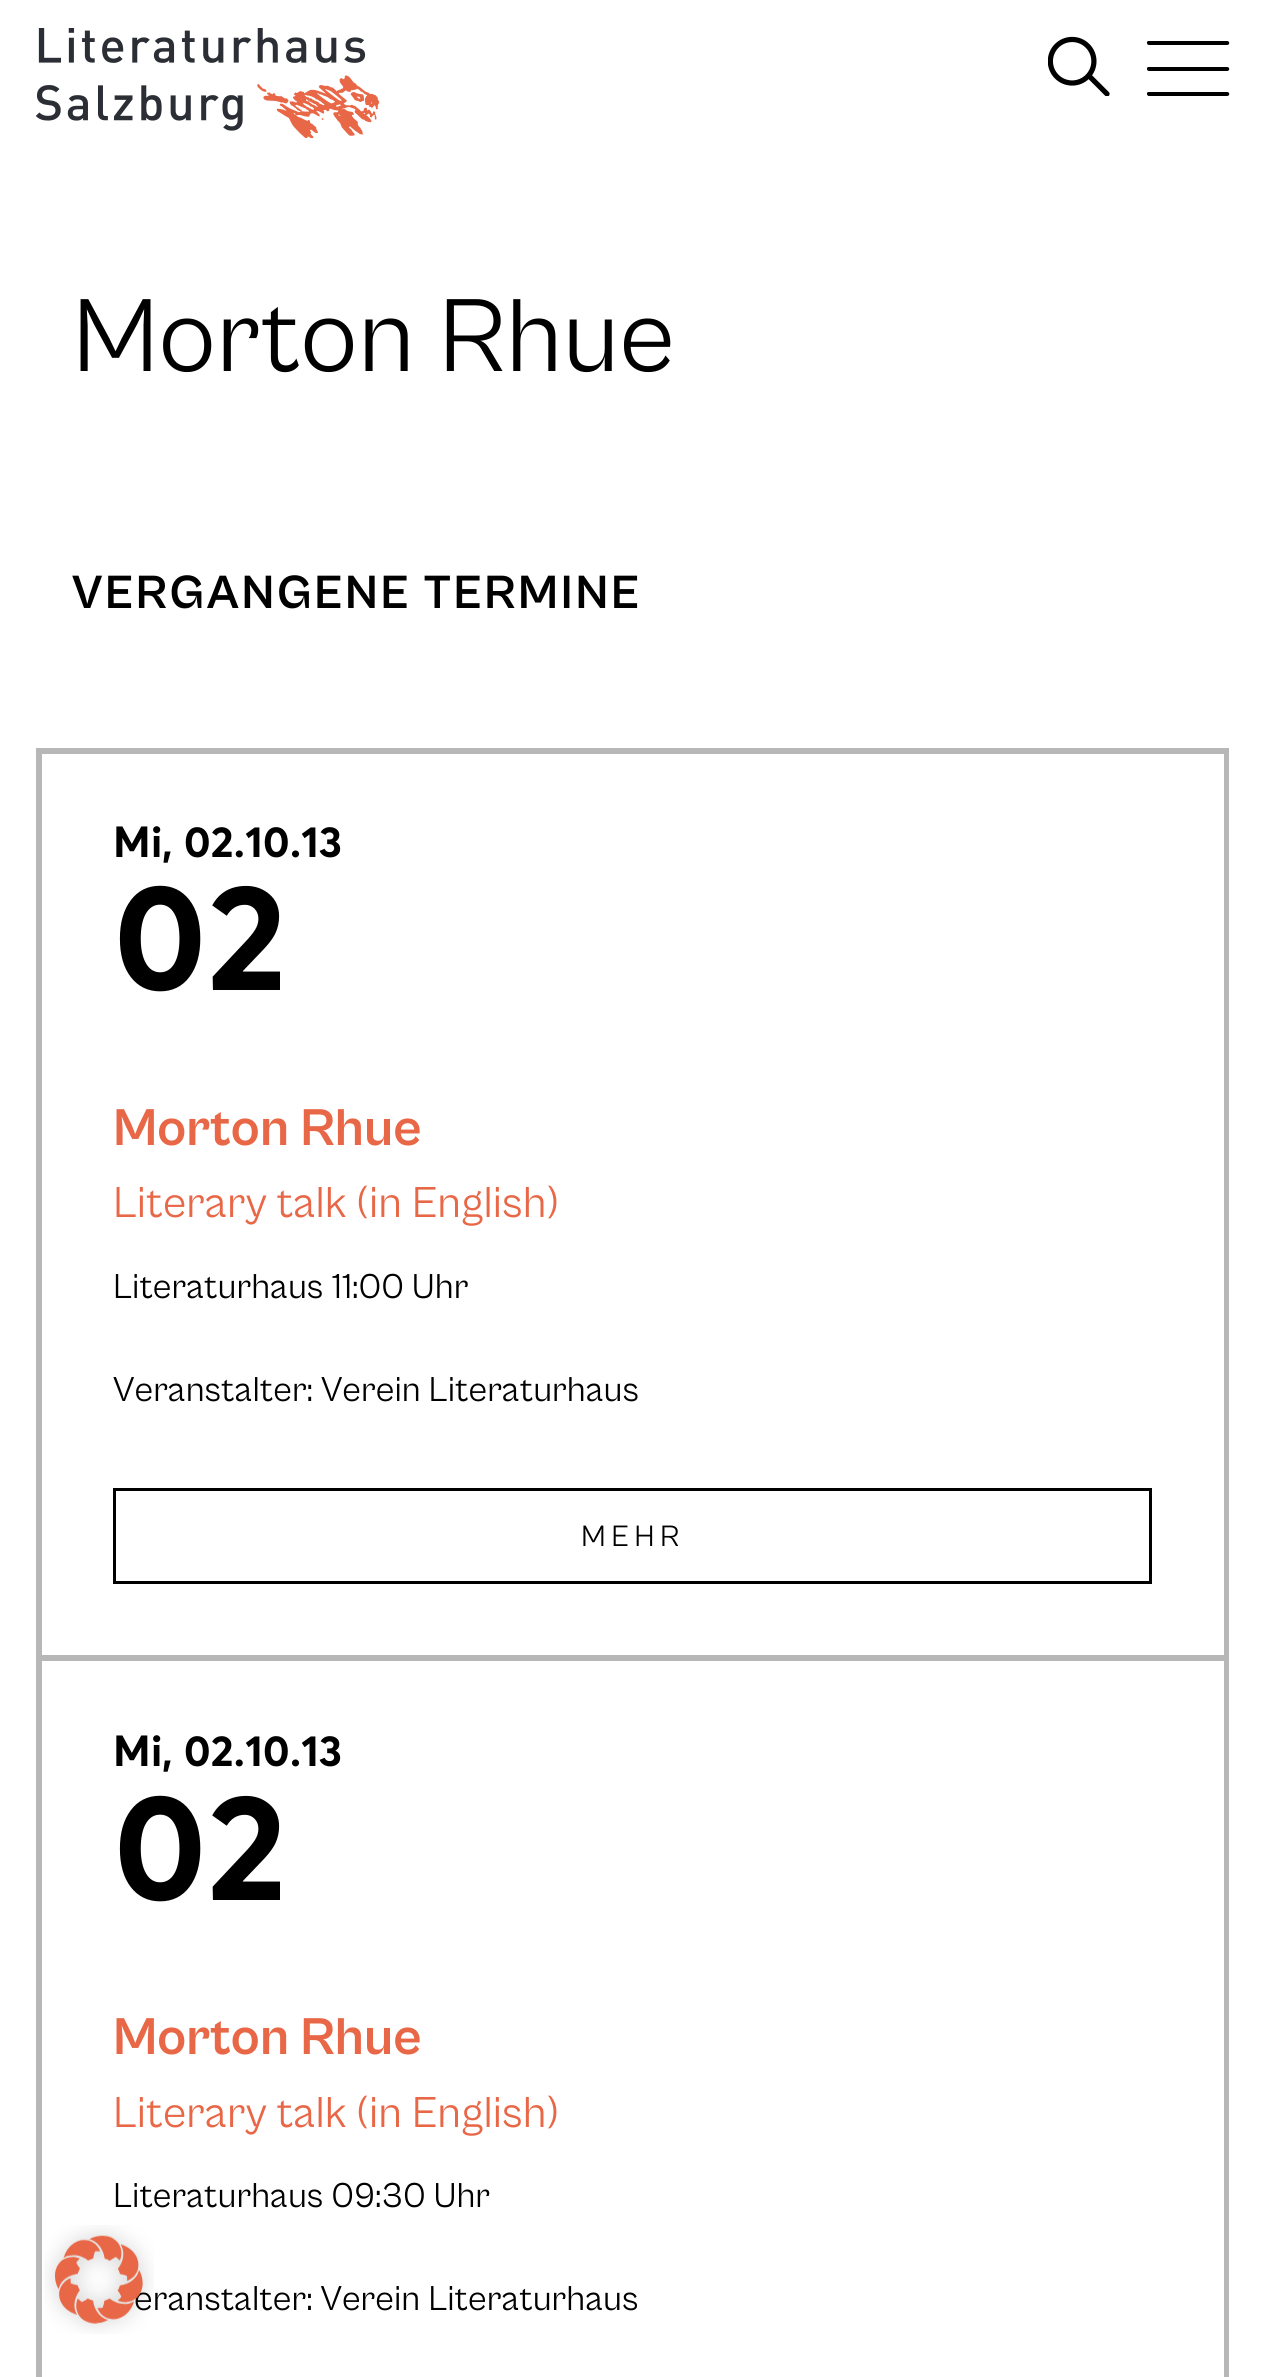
import math
import cairocffi as cairo

surface = cairo.ImageSurface(cairo.FORMAT_RGB24, 1264, 2377)
cr = cairo.Context(surface)
options = cairo.FontOptions()
options.set_hint_metrics(cairo.HINT_METRICS_OFF)
options.set_hint_style(cairo.HINT_STYLE_NONE)
cr.set_font_options(options)
cr.set_miter_limit(4)


def use_color(code):
    cr.set_source_rgb(*(v / 255 for v in bytes.fromhex(code[-6:])))


def spaced_text(x, y, s, letter, word):
    cr.move_to(x, y)
    for ch in s:
        cr.show_text(ch)
        cr.rel_move_to(letter + word * (ch == ' '), 0)


def picture(path, x, y, w, h):
    cr.save()
    cr.set_source_surface(cairo.ImageSurface.create_from_png(path), x, y)
    cr.rectangle(x, y, w, h)
    cr.fill()
    cr.restore()


use_color("#ffffff")
cr.paint()
picture("img1.png", 36, 28, 344, 110)
picture("img2.png", 1048, 36, 62, 60)
use_color("#000000")
cr.new_path()
cr.move_to(1227, 45)
cr.line_to(1149, 45)
cr.curve_to(1147, 45, 1146, 42, 1148, 41)
cr.line_to(1227, 41)
cr.curve_to(1230, 41, 1230, 45, 1227, 45)
cr.close_path()
cr.fill()
cr.new_path()
cr.move_to(1227, 71)
cr.line_to(1149, 71)
cr.curve_to(1147, 71, 1146, 68, 1148, 67)
cr.line_to(1227, 67)
cr.curve_to(1230, 67, 1230, 71, 1227, 71)
cr.close_path()
cr.fill()
cr.new_path()
cr.move_to(1227, 96)
cr.line_to(1149, 96)
cr.curve_to(1147, 96, 1146, 93, 1148, 92)
cr.line_to(1227, 92)
cr.curve_to(1230, 92, 1230, 96, 1227, 96)
cr.close_path()
cr.fill()
cr.select_font_face("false")
cr.set_font_size(107.25)
cr.move_to(72, 371)
cr.show_text("Morton Rhue")
cr.select_font_face("false", cairo.FONT_SLANT_NORMAL, cairo.FONT_WEIGHT_BOLD)
cr.set_font_size(48.25)
spaced_text(72, 608, "VERGANGENE TERMINE", 2.75, 0)
cr.rectangle(37.5, 749.5, 1190, 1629)
use_color("#b7b7b7")
cr.set_line_width(3)
cr.stroke()
cr.rectangle(40.5, 752.5, 1185, 904)
cr.stroke()
cr.select_font_face("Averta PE")
cr.set_font_size(43)
use_color("#000000")
cr.move_to(113, 857)
cr.show_text("Mi, 02.10.13")
cr.set_font_size(150)
cr.move_to(113, 990)
cr.show_text("02")
cr.select_font_face("false", cairo.FONT_SLANT_NORMAL, cairo.FONT_WEIGHT_BOLD)
cr.set_font_size(53.5)
use_color("#e86747")
cr.move_to(113, 1145)
cr.show_text("Morton Rhue")
cr.select_font_face("false")
cr.set_font_size(44.75)
cr.move_to(113, 1217)
cr.show_text("Literary talk (in English)")
cr.set_font_size(35.75)
use_color("#000000")
cr.move_to(113, 1298)
cr.show_text("Literaturhaus 11:00 Uhr")
cr.move_to(113, 1401)
cr.show_text("Veranstalter: Verein Literaturhaus")
cr.rectangle(114.5, 1489.5, 1036, 93)
cr.stroke()
cr.set_font_size(30.5)
spaced_text(581, 1546, "MEHR", 5.5, 0)
cr.rectangle(40.5, 1659.5, 1185, 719)
use_color("#b7b7b7")
cr.stroke()
cr.select_font_face("Averta PE")
cr.set_font_size(43)
use_color("#000000")
cr.move_to(113, 1766)
cr.show_text("Mi, 02.10.13")
cr.set_font_size(150)
cr.move_to(113, 1900)
cr.show_text("02")
cr.select_font_face("false", cairo.FONT_SLANT_NORMAL, cairo.FONT_WEIGHT_BOLD)
cr.set_font_size(53.5)
use_color("#e86747")
cr.move_to(113, 2054)
cr.show_text("Morton Rhue")
cr.select_font_face("false")
cr.set_font_size(44.75)
cr.move_to(113, 2127)
cr.show_text("Literary talk (in English)")
cr.set_font_size(35.75)
use_color("#000000")
cr.move_to(113, 2207)
cr.show_text("Literaturhaus 09:30 Uhr")
cr.move_to(134, 2310)
cr.show_text("eranstalter: Verein Literaturhaus")
picture("img3.png", 44, 2225, 110, 109)
surface.write_to_png("result.png")
